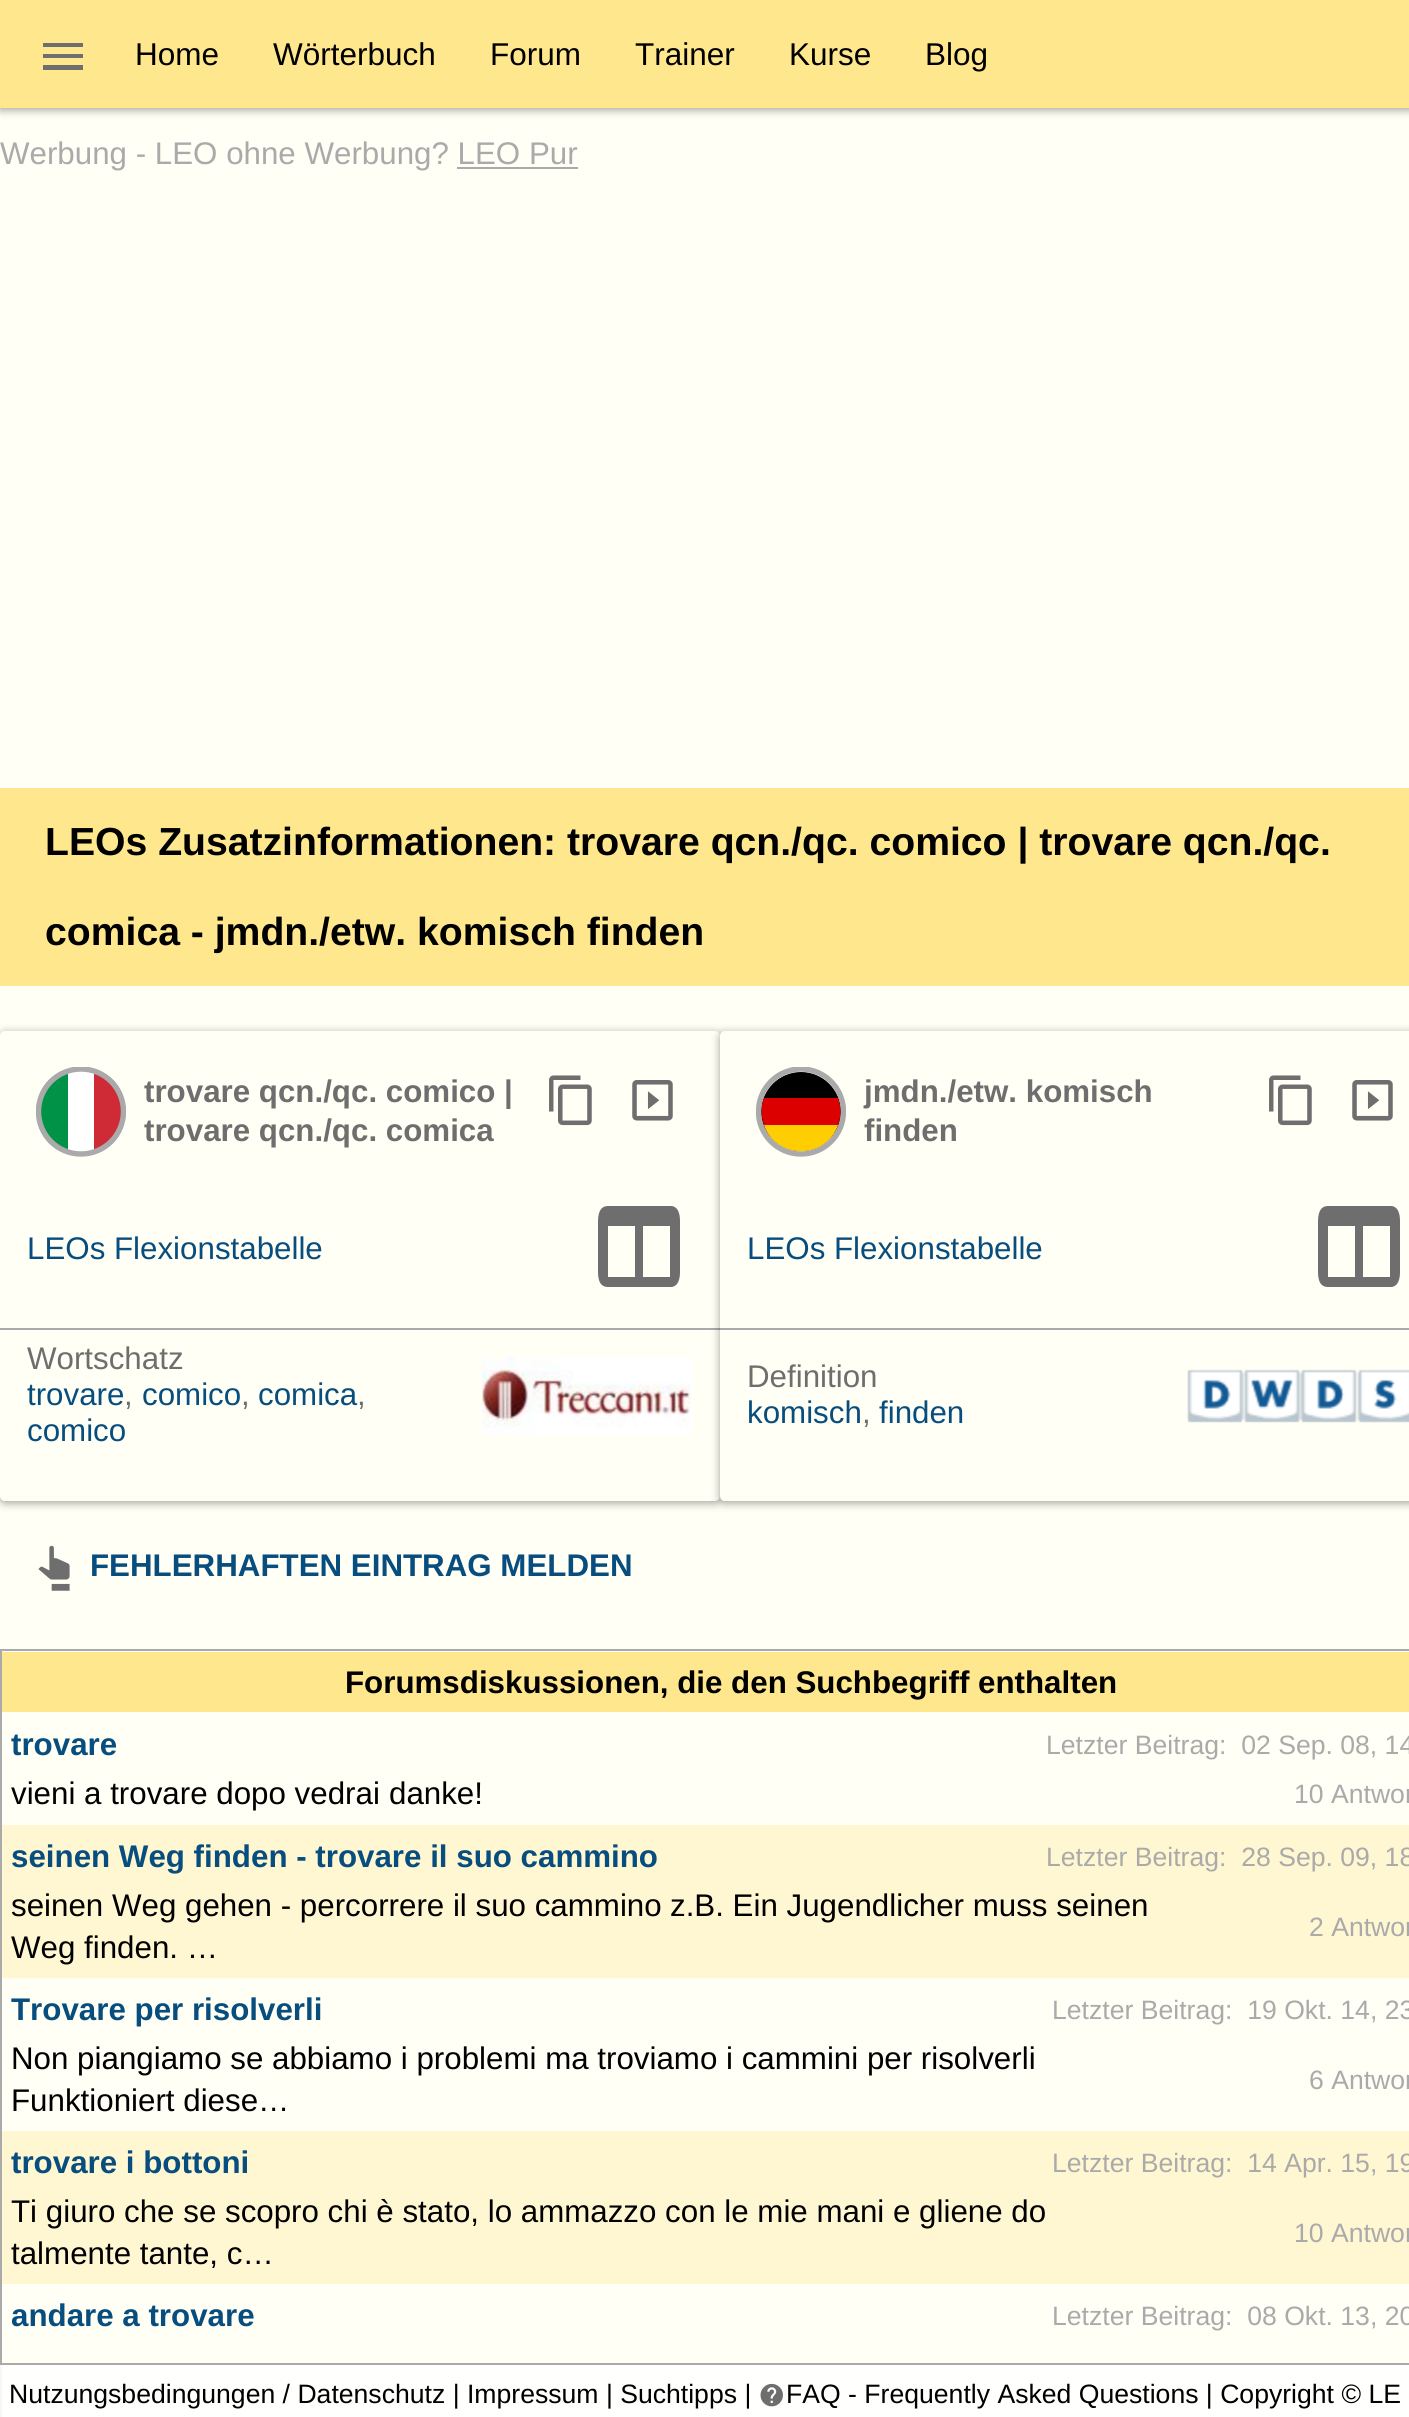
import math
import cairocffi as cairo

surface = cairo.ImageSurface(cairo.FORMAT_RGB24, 1409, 2417)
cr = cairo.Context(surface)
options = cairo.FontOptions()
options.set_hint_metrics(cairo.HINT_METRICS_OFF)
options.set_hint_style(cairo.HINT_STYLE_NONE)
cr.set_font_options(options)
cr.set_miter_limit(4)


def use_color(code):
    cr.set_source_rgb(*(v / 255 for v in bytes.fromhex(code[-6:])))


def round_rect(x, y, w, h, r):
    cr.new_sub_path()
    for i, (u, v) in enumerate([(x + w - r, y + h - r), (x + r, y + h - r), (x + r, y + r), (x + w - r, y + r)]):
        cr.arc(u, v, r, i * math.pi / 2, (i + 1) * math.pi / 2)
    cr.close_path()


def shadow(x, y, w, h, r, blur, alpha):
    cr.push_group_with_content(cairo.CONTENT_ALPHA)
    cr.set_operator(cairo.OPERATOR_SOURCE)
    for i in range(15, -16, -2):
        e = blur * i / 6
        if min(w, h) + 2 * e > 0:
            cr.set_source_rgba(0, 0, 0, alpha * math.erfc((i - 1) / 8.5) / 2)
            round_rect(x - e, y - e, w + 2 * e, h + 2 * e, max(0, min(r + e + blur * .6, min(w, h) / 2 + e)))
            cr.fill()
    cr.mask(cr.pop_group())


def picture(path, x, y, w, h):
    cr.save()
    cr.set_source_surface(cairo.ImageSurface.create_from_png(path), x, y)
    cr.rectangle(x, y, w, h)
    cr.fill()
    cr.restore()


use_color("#fffff5")
cr.paint()
use_color("#000000")
shadow(0, 2, 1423, 108, 0, 4.5, 0.37)
use_color("#ffe78d")
cr.rectangle(0, 0, 1409, 108)
cr.fill()
use_color("#6e6e6e")
cr.new_path()
cr.move_to(43, 43)
cr.line_to(83, 43)
cr.line_to(83, 47)
cr.line_to(43, 47)
cr.close_path()
cr.move_to(43, 54)
cr.line_to(83, 54)
cr.line_to(83, 58)
cr.line_to(43, 58)
cr.close_path()
cr.move_to(43, 65)
cr.line_to(83, 65)
cr.line_to(83, 70)
cr.line_to(43, 70)
cr.close_path()
cr.fill()
cr.select_font_face("Liberation Sans")
cr.set_font_size(31.5)
use_color("#000000")
cr.move_to(135, 65)
cr.show_text("Home")
cr.move_to(273, 65)
cr.show_text("Wörterbuch")
cr.move_to(490, 65)
cr.show_text("Forum")
cr.move_to(635, 65)
cr.show_text("Trainer")
cr.move_to(789, 65)
cr.show_text("Kurse")
cr.move_to(925, 65)
cr.show_text("Blog")
cr.set_font_size(31.3)
use_color("#aaaaaa")
cr.move_to(0, 164)
cr.show_text("Werbung - LEO ohne Werbung? LEO Pur")
cr.rectangle(457, 167, 121, 2)
cr.fill()
use_color("#ffe78d")
cr.rectangle(0, 788, 1409, 198)
cr.fill()
cr.select_font_face("Liberation Sans", cairo.FONT_SLANT_NORMAL, cairo.FONT_WEIGHT_BOLD)
cr.set_font_size(39.15)
use_color("#000000")
cr.move_to(45, 855)
cr.show_text("LEOs Zusatzinformationen: trovare qcn./qc. comico | trovare qcn./qc.")
cr.move_to(45, 945)
cr.show_text("comica - jmdn./etw. komisch finden")
use_color("#000000")
shadow(0, 1033, 720, 470, 5, 4.5, 0.37)
use_color("#fffff5")
round_rect(0, 1031, 720, 470, 5)
cr.fill()
cr.save()
cr.rectangle(36, 1067, 90, 90)
cr.clip()
use_color("#ffffff")
cr.new_path()
cr.move_to(81, 1067)
cr.curve_to(73, 1066, 64, 1069, 57, 1073)
cr.line_to(57, 1150)
cr.curve_to(70, 1158, 89, 1159, 102, 1151)
cr.line_to(102, 1072)
cr.curve_to(96, 1068, 88, 1067, 81, 1067)
cr.close_path()
cr.fill()
cr.restore()
use_color("#009246")
cr.new_path()
cr.move_to(68, 1069)
cr.curve_to(26, 1081, 26, 1142, 68, 1154)
cr.close_path()
cr.fill()
use_color("#ce2b37")
cr.new_path()
cr.move_to(94, 1154)
cr.curve_to(136, 1142, 136, 1081, 94, 1069)
cr.close_path()
cr.fill()
cr.save()
cr.rectangle(36, 1067, 90, 90)
cr.clip()
cr.arc(81, 1111.5, 42.5, 0, 2 * math.pi)
use_color("#aaaaaa")
cr.set_line_width(5.4)
cr.stroke()
cr.restore()
cr.set_font_size(31.3)
use_color("#6e6e6e")
cr.move_to(144, 1102)
cr.show_text("trovare qcn./qc. comico |")
cr.move_to(144, 1141)
cr.show_text("trovare qcn./qc. comica")
picture("img1.png", 549, 1075, 43, 51)
picture("img2.png", 632, 1080, 41, 41)
cr.select_font_face("Liberation Sans")
use_color("#074d7e")
cr.move_to(27, 1259)
cr.show_text("LEOs Flexionstabelle")
use_color("#6e6e6e")
cr.new_path()
cr.move_to(608, 1206)
cr.line_to(672, 1206)
cr.curve_to(681, 1208, 680, 1220, 680, 1226)
cr.line_to(680, 1267)
cr.curve_to(680, 1273, 681, 1285, 672, 1287)
cr.line_to(608, 1287)
cr.curve_to(597, 1287, 598, 1274, 598, 1267)
cr.line_to(598, 1226)
cr.curve_to(598, 1220, 597, 1206, 608, 1206)
cr.close_path()
cr.move_to(608, 1226)
cr.line_to(608, 1277)
cr.line_to(635, 1277)
cr.line_to(635, 1226)
cr.close_path()
cr.move_to(643, 1226)
cr.line_to(643, 1277)
cr.line_to(670, 1277)
cr.line_to(670, 1226)
cr.close_path()
cr.fill()
use_color("#aaaaaa")
cr.rectangle(0, 1328, 720, 2)
cr.fill()
use_color("#6e6e6e")
cr.move_to(27, 1369)
cr.show_text("Wortschatz")
use_color("#074d7e")
cr.move_to(27, 1405)
cr.show_text("trovare")
use_color("#6e6e6e")
cr.move_to(124, 1405)
cr.show_text(",")
use_color("#074d7e")
cr.move_to(142, 1405)
cr.show_text("comico")
use_color("#6e6e6e")
cr.move_to(241, 1405)
cr.show_text(",")
use_color("#074d7e")
cr.move_to(258, 1405)
cr.show_text("comica")
use_color("#6e6e6e")
cr.move_to(357, 1405)
cr.show_text(",")
use_color("#074d7e")
cr.move_to(27, 1441)
cr.show_text("comico")
picture("img3.png", 482, 1357, 211, 79)
use_color("#000000")
shadow(720, 1033, 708, 470, 5, 4.5, 0.37)
use_color("#fffff5")
cr.new_path()
cr.move_to(725, 1031)
cr.line_to(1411, 1031)
cr.line_to(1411, 1501)
cr.line_to(725, 1501)
cr.curve_to(722, 1501, 720, 1499, 720, 1496)
cr.line_to(720, 1036)
cr.curve_to(720, 1033, 722, 1031, 725, 1031)
cr.close_path()
cr.fill()
use_color("#000000")
cr.new_path()
cr.move_to(801, 1072)
cr.curve_to(779, 1072, 761, 1090, 761, 1112)
cr.curve_to(761, 1133, 779, 1151, 801, 1151)
cr.curve_to(823, 1151, 841, 1133, 841, 1112)
cr.curve_to(841, 1090, 823, 1072, 801, 1072)
cr.close_path()
cr.fill()
use_color("#dd0000")
cr.new_path()
cr.move_to(764, 1098)
cr.curve_to(760, 1108, 761, 1118, 765, 1127)
cr.curve_to(767, 1134, 773, 1140, 779, 1144)
cr.curve_to(811, 1166, 851, 1133, 838, 1098)
cr.close_path()
cr.fill()
use_color("#ffce00")
cr.new_path()
cr.move_to(764, 1125)
cr.curve_to(776, 1160, 826, 1160, 838, 1125)
cr.close_path()
cr.fill()
cr.save()
cr.rectangle(756, 1067, 90, 90)
cr.clip()
cr.arc(801, 1111.5, 42.5, 0, 2 * math.pi)
use_color("#aaaaaa")
cr.set_line_width(5.4)
cr.stroke()
cr.restore()
cr.select_font_face("Liberation Sans", cairo.FONT_SLANT_NORMAL, cairo.FONT_WEIGHT_BOLD)
use_color("#6e6e6e")
cr.move_to(864, 1102)
cr.show_text("jmdn./etw. komisch")
cr.move_to(864, 1141)
cr.show_text("finden")
picture("img1.png", 1269, 1075, 43, 51)
picture("img2.png", 1352, 1080, 41, 41)
cr.select_font_face("Liberation Sans")
use_color("#074d7e")
cr.move_to(747, 1259)
cr.show_text("LEOs Flexionstabelle")
use_color("#6e6e6e")
cr.new_path()
cr.move_to(1328, 1206)
cr.line_to(1392, 1206)
cr.curve_to(1401, 1208, 1400, 1220, 1400, 1226)
cr.line_to(1400, 1267)
cr.curve_to(1400, 1273, 1401, 1285, 1392, 1287)
cr.line_to(1328, 1287)
cr.curve_to(1317, 1287, 1318, 1274, 1318, 1267)
cr.line_to(1318, 1226)
cr.curve_to(1318, 1220, 1317, 1206, 1328, 1206)
cr.close_path()
cr.move_to(1328, 1226)
cr.line_to(1328, 1277)
cr.line_to(1355, 1277)
cr.line_to(1355, 1226)
cr.close_path()
cr.move_to(1363, 1226)
cr.line_to(1363, 1277)
cr.line_to(1390, 1277)
cr.line_to(1390, 1226)
cr.close_path()
cr.fill()
use_color("#aaaaaa")
cr.rectangle(720, 1328, 689, 2)
cr.fill()
use_color("#6e6e6e")
cr.move_to(747, 1387)
cr.show_text("Definition")
use_color("#074d7e")
cr.move_to(747, 1423)
cr.show_text("komisch")
use_color("#6e6e6e")
cr.move_to(862, 1423)
cr.show_text(",")
use_color("#074d7e")
cr.move_to(879, 1423)
cr.show_text("finden")
picture("img4.png", 1187, 1369, 222, 54)
picture("img5.png", 38, 1545, 32, 46)
cr.select_font_face("Liberation Sans", cairo.FONT_SLANT_NORMAL, cairo.FONT_WEIGHT_BOLD)
cr.move_to(90, 1576)
cr.show_text("FEHLERHAFTEN EINTRAG MELDEN")
cr.rectangle(1, 1650, 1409, 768)
use_color("#aaaaaa")
cr.stroke()
use_color("#ffe78d")
cr.rectangle(2, 1652, 1407, 60)
cr.fill()
use_color("#000000")
cr.move_to(345, 1693)
cr.show_text("Forumsdiskussionen, die den Suchbegriff enthalten")
use_color("#074d7e")
cr.move_to(11, 1755)
cr.show_text("trovare")
cr.select_font_face("Liberation Sans")
cr.set_font_size(26.6)
use_color("#aaaaaa")
cr.move_to(1046, 1754)
cr.show_text("Letzter Beitrag:  02 Sep. 08, 14")
cr.set_font_size(31.3)
use_color("#000000")
cr.move_to(11, 1804)
cr.show_text("vieni a trovare dopo vedrai")
cr.move_to(389, 1804)
cr.show_text("danke!")
cr.set_font_size(26.6)
use_color("#aaaaaa")
cr.move_to(1294, 1803)
cr.show_text("10 Antwor")
use_color("#fff6d2")
cr.rectangle(2, 1825, 1407, 56)
cr.fill()
cr.select_font_face("Liberation Sans", cairo.FONT_SLANT_NORMAL, cairo.FONT_WEIGHT_BOLD)
cr.set_font_size(31.3)
use_color("#074d7e")
cr.move_to(11, 1867)
cr.show_text("seinen Weg finden - trovare il suo cammino")
cr.select_font_face("Liberation Sans")
cr.set_font_size(26.6)
use_color("#aaaaaa")
cr.move_to(1046, 1866)
cr.show_text("Letzter Beitrag:  28 Sep. 09, 18")
use_color("#fff6d2")
cr.rectangle(2, 1881, 1407, 97)
cr.fill()
cr.set_font_size(31.3)
use_color("#000000")
cr.move_to(11, 1916)
cr.show_text("seinen Weg gehen - percorrere il suo cammino")
cr.move_to(670, 1916)
cr.show_text("z.B. Ein Jugendlicher muss seinen")
cr.move_to(11, 1958)
cr.show_text("Weg finden. …")
cr.set_font_size(26.6)
use_color("#aaaaaa")
cr.move_to(1309, 1936)
cr.show_text("2 Antwor")
cr.select_font_face("Liberation Sans", cairo.FONT_SLANT_NORMAL, cairo.FONT_WEIGHT_BOLD)
cr.set_font_size(31.3)
use_color("#074d7e")
cr.move_to(11, 2020)
cr.show_text("Trovare per risolverli")
cr.select_font_face("Liberation Sans")
cr.set_font_size(26.6)
use_color("#aaaaaa")
cr.move_to(1052, 2019)
cr.show_text("Letzter Beitrag:  19 Okt. 14, 23")
cr.set_font_size(31.3)
use_color("#000000")
cr.move_to(11, 2069)
cr.show_text("Non piangiamo se abbiamo i problemi ma troviamo i cammini per risolverli")
cr.move_to(11, 2111)
cr.show_text("Funktioniert diese…")
cr.set_font_size(26.6)
use_color("#aaaaaa")
cr.move_to(1309, 2089)
cr.show_text("6 Antwor")
use_color("#fff6d2")
cr.rectangle(2, 2131, 1407, 56)
cr.fill()
cr.select_font_face("Liberation Sans", cairo.FONT_SLANT_NORMAL, cairo.FONT_WEIGHT_BOLD)
cr.set_font_size(31.3)
use_color("#074d7e")
cr.move_to(11, 2173)
cr.show_text("trovare i bottoni")
cr.select_font_face("Liberation Sans")
cr.set_font_size(26.6)
use_color("#aaaaaa")
cr.move_to(1052, 2172)
cr.show_text("Letzter Beitrag:  14 Apr. 15, 19")
use_color("#fff6d2")
cr.rectangle(2, 2187, 1407, 97)
cr.fill()
cr.set_font_size(31.3)
use_color("#000000")
cr.move_to(11, 2222)
cr.show_text("Ti giuro che se scopro chi è stato, lo ammazzo con le mie mani e gliene do")
cr.move_to(11, 2264)
cr.show_text("talmente tante, c…")
cr.set_font_size(26.6)
use_color("#aaaaaa")
cr.move_to(1294, 2242)
cr.show_text("10 Antwor")
cr.select_font_face("Liberation Sans", cairo.FONT_SLANT_NORMAL, cairo.FONT_WEIGHT_BOLD)
cr.set_font_size(31.3)
use_color("#074d7e")
cr.move_to(11, 2326)
cr.show_text("andare a trovare")
cr.select_font_face("Liberation Sans")
cr.set_font_size(26.6)
use_color("#aaaaaa")
cr.move_to(1052, 2325)
cr.show_text("Letzter Beitrag:  08 Okt. 13, 20")
cr.set_source_rgba(1, 1, 1, 0.9)
cr.rectangle(0, 2365, 1409, 52)
cr.fill()
use_color("#aaaaaa")
cr.rectangle(0, 2363, 1409, 2)
cr.fill()
use_color("#000000")
cr.move_to(9, 2403)
cr.show_text("Nutzungsbedingungen / Datenschutz | Impressum | Suchtipps |")
picture("img6.png", 760, 2383, 23, 24)
cr.move_to(786, 2403)
cr.show_text("FAQ - Frequently Asked Questions | Copyright © LE")
surface.write_to_png("result.png")
